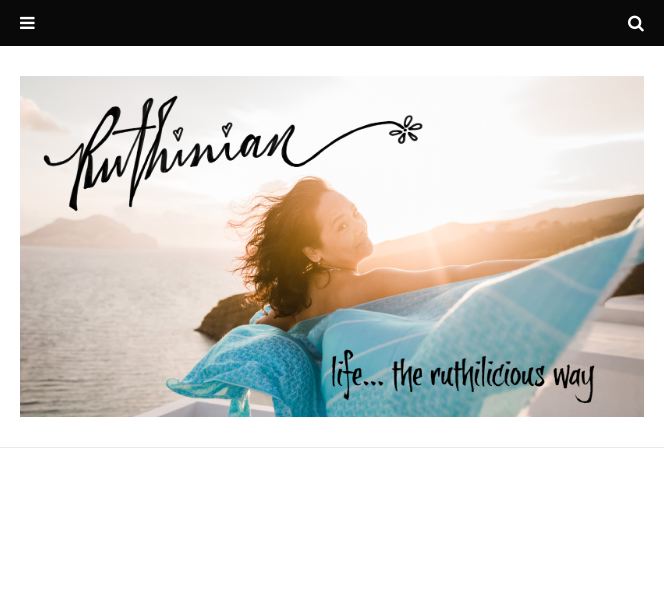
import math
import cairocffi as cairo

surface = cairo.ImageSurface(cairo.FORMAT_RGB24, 664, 595)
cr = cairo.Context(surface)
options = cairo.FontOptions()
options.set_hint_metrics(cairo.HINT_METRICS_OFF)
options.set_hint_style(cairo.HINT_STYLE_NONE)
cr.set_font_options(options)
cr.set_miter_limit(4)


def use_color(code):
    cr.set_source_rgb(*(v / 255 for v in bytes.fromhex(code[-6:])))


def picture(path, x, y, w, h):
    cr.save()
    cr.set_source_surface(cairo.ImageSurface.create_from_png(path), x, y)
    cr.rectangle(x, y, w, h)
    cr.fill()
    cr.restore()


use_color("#ffffff")
cr.paint()
use_color("#090909")
cr.rectangle(0, 0, 664, 46)
cr.fill()
picture("img1.png", 20, 16, 15, 13)
picture("img2.png", 628, 15, 16, 17)
use_color("#ebebeb")
cr.rectangle(0, 447, 664, 1)
cr.fill()
picture("img3.png", 20, 76, 624, 341)
surface.write_to_png("result.png")
